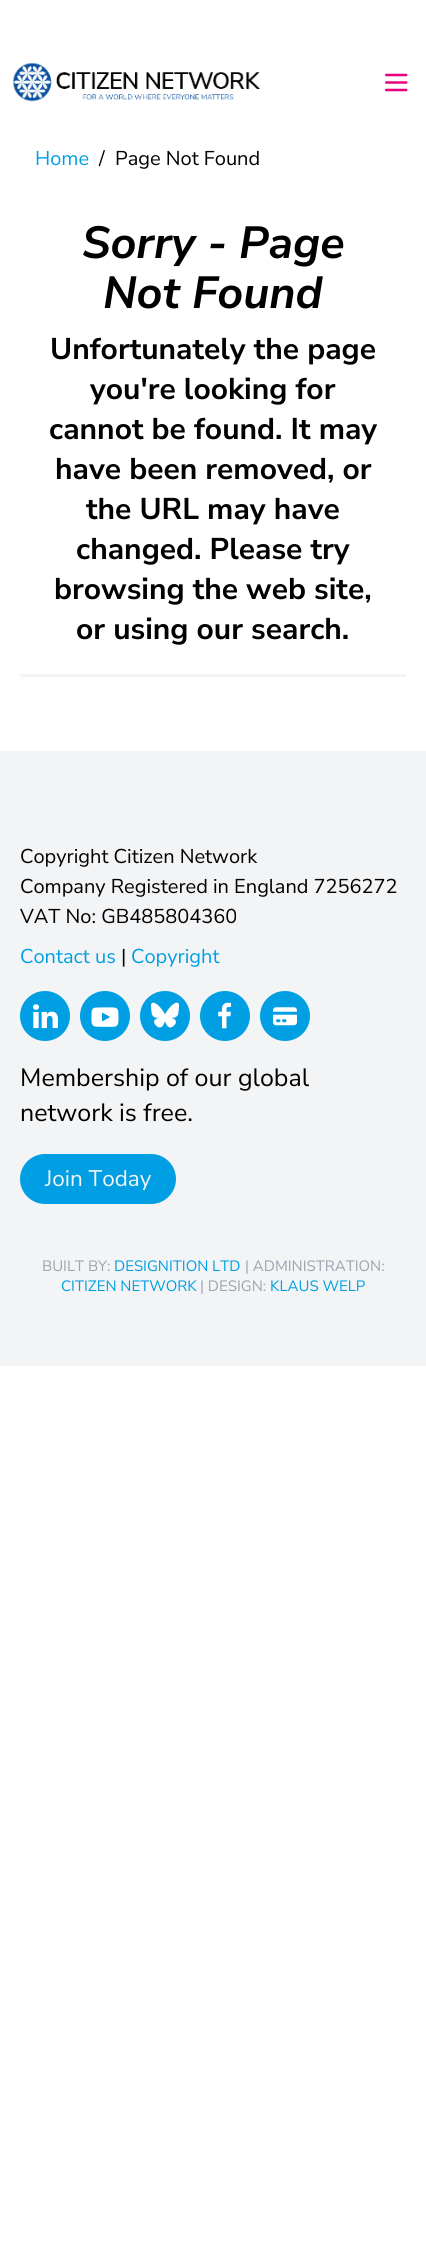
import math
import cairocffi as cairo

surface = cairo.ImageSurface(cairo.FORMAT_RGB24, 426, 2267)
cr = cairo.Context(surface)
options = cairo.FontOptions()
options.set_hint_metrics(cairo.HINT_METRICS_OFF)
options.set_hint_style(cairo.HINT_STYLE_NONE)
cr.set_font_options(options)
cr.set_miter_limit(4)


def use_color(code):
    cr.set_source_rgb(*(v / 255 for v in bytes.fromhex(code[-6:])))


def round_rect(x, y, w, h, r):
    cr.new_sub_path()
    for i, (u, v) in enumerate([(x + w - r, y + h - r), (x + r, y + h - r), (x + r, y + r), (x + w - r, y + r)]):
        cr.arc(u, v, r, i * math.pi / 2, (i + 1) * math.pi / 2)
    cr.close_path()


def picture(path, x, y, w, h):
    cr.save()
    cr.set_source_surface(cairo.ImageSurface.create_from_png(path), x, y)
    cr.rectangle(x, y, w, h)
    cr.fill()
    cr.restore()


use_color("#ffffff")
cr.paint()
picture("img1.png", 12, 62, 248, 40)
picture("img2.png", 385, 73, 23, 19)
cr.select_font_face("Nunito Sans")
cr.set_font_size(20)
use_color("#009fe3")
cr.move_to(35, 165)
cr.show_text("Home")
use_color("#000000")
cr.move_to(99, 165)
cr.show_text("/")
cr.move_to(115, 165)
cr.show_text("Page Not Found")
use_color("#f3f4f6")
cr.rectangle(20, 674, 386, 3)
cr.fill()
cr.select_font_face("Nunito Sans", cairo.FONT_SLANT_ITALIC, cairo.FONT_WEIGHT_BOLD)
cr.set_font_size(45)
use_color("#000000")
cr.move_to(82, 258)
cr.show_text("Sorry - Page")
cr.move_to(103, 308)
cr.show_text("Not Found")
cr.select_font_face("Nunito Sans", cairo.FONT_SLANT_NORMAL, cairo.FONT_WEIGHT_BOLD)
cr.set_font_size(30)
cr.move_to(50, 359)
cr.show_text("Unfortunately the page")
cr.move_to(90, 399)
cr.show_text("you're looking for")
cr.move_to(49, 439)
cr.show_text("cannot be found. It may")
cr.move_to(55, 479)
cr.show_text("have been removed, or")
cr.move_to(86, 519)
cr.show_text("the URL may have")
cr.move_to(76, 559)
cr.show_text("changed. Please try")
cr.move_to(54, 599)
cr.show_text("browsing the web site,")
cr.move_to(76, 639)
cr.show_text("or using our search.")
use_color("#f3f4f6")
cr.rectangle(0, 751, 426, 615)
cr.fill()
cr.select_font_face("Nunito Sans")
cr.set_font_size(20)
use_color("#000000")
cr.move_to(20, 863)
cr.show_text("Copyright Citizen Network")
cr.move_to(20, 893)
cr.show_text("Company Registered in England 7256272")
cr.move_to(20, 923)
cr.show_text("VAT No: GB485804360")
use_color("#009fe3")
cr.move_to(20, 963)
cr.show_text("Contact us")
use_color("#000000")
cr.move_to(121, 963)
cr.show_text("|")
use_color("#009fe3")
cr.move_to(131, 963)
cr.show_text("Copyright")
cr.new_path()
cr.arc(45, 1016, 25, 0, 2 * math.pi)
cr.fill()
picture("img3.png", 33, 1004, 25, 25)
cr.arc(105, 1016, 25, 0, 2 * math.pi)
cr.fill()
picture("img4.png", 91, 1007, 28, 20)
cr.arc(165, 1016, 25, 0, 2 * math.pi)
cr.fill()
picture("img5.png", 151, 1002, 28, 26)
cr.arc(225, 1016, 25, 0, 2 * math.pi)
cr.fill()
picture("img6.png", 218, 1002, 13, 27)
cr.arc(285, 1016, 25, 0, 2 * math.pi)
cr.fill()
picture("img7.png", 273, 1007, 24, 19)
cr.set_font_size(25)
use_color("#000000")
cr.move_to(20, 1086)
cr.show_text("Membership of our global")
cr.move_to(20, 1121)
cr.show_text("network is free.")
use_color("#009fe3")
round_rect(20, 1154, 156, 50, 25)
cr.fill()
cr.set_font_size(22.5)
use_color("#f3f4f6")
cr.move_to(45, 1186)
cr.show_text("Join Today")
cr.set_font_size(15)
use_color("#9ca3af")
cr.move_to(42, 1271)
cr.show_text("BUILT BY:")
use_color("#009fe3")
cr.move_to(114, 1271)
cr.show_text("DESIGNITION LTD")
use_color("#9ca3af")
cr.move_to(245, 1271)
cr.show_text("| ADMINISTRATION:")
use_color("#009fe3")
cr.move_to(61, 1291)
cr.show_text("CITIZEN NETWORK")
use_color("#9ca3af")
cr.move_to(200, 1291)
cr.show_text("| DESIGN:")
use_color("#009fe3")
cr.move_to(270, 1291)
cr.show_text("KLAUS WELP")
surface.write_to_png("result.png")
